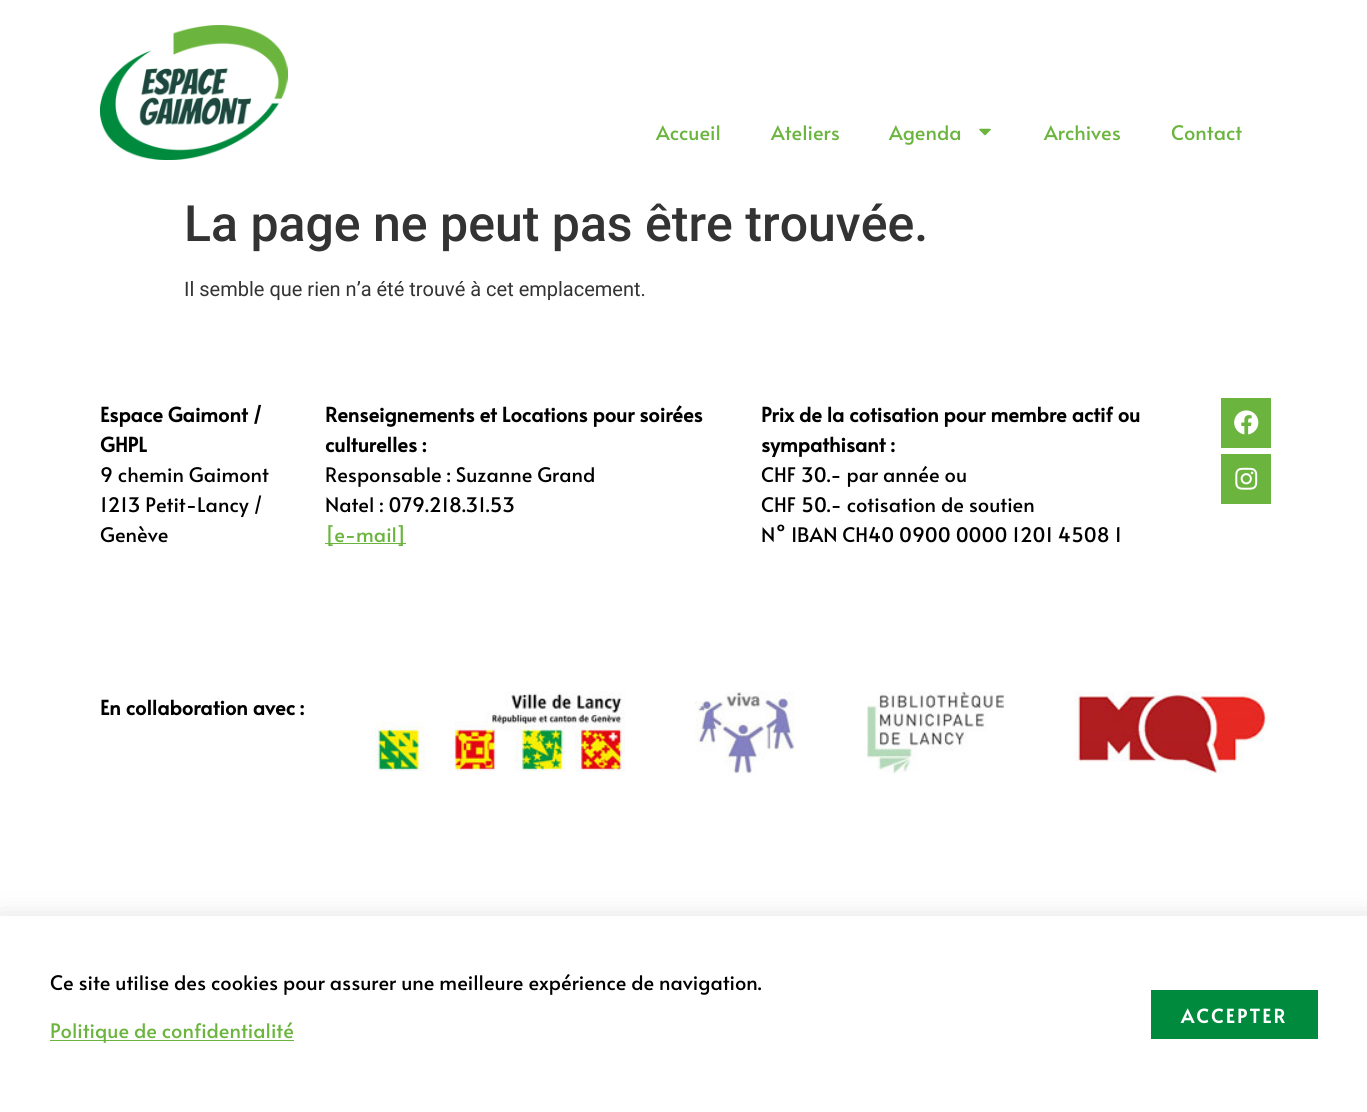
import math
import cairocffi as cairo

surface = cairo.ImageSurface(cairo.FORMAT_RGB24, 1367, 1112)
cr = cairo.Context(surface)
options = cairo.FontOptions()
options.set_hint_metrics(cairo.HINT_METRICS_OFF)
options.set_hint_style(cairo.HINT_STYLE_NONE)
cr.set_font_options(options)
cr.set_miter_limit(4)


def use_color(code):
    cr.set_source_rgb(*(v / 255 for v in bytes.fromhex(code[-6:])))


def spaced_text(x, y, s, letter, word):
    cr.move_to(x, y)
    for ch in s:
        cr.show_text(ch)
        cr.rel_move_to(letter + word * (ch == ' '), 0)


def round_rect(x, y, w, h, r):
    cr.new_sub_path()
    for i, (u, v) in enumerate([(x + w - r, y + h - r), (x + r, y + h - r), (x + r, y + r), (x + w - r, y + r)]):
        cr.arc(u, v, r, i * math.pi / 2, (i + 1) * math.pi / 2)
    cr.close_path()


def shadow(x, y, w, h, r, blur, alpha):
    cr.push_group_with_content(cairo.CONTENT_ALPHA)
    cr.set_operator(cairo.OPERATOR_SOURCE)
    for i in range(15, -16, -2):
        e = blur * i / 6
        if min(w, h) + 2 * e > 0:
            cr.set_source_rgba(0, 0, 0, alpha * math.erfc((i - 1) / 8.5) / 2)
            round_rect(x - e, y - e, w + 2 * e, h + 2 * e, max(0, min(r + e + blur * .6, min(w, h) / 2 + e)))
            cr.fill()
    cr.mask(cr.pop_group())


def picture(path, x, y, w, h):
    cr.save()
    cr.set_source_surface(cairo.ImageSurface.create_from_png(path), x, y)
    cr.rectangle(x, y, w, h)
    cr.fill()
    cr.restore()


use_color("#ffffff")
cr.paint()
picture("img1.png", 100, 25, 188, 135)
cr.select_font_face("Alata")
cr.set_font_size(20)
use_color("#6bb53f")
cr.move_to(656, 140)
cr.show_text("Accueil")
cr.move_to(771, 140)
cr.show_text("Ateliers")
cr.move_to(889, 140)
cr.show_text("Agenda")
picture("img2.png", 979, 128, 12, 8)
cr.move_to(1044, 140)
cr.show_text("Archives")
cr.move_to(1171, 140)
cr.show_text("Contact")
cr.select_font_face("Roboto Medium")
cr.set_font_size(50)
use_color("#333333")
cr.move_to(184, 241)
cr.show_text("La page ne peut pas être trouvée.")
cr.select_font_face("Roboto")
cr.set_font_size(20)
cr.move_to(184, 296)
cr.show_text("Il semble que rien n’a été trouvé à cet emplacement.")
cr.select_font_face("Alata", cairo.FONT_SLANT_NORMAL, cairo.FONT_WEIGHT_BOLD)
use_color("#000000")
cr.move_to(100, 422)
cr.show_text("Espace Gaimont /")
cr.move_to(100, 452)
cr.show_text("GHPL")
cr.select_font_face("Alata")
cr.move_to(100, 482)
cr.show_text("9 chemin Gaimont")
cr.move_to(100, 512)
cr.show_text("1213 Petit-Lancy /")
cr.move_to(100, 542)
cr.show_text("Genève")
cr.select_font_face("Alata", cairo.FONT_SLANT_NORMAL, cairo.FONT_WEIGHT_BOLD)
cr.move_to(325, 422)
cr.show_text("Renseignements et Locations pour soirées")
cr.move_to(325, 452)
cr.show_text("culturelles :")
cr.select_font_face("Alata")
cr.move_to(325, 482)
cr.show_text("Responsable : Suzanne Grand")
cr.move_to(325, 512)
cr.show_text("Natel : 079.218.31.53")
use_color("#6bb53f")
cr.rectangle(325, 543, 81, 1)
cr.fill()
cr.move_to(325, 542)
cr.show_text("[e-mail]")
cr.select_font_face("Alata", cairo.FONT_SLANT_NORMAL, cairo.FONT_WEIGHT_BOLD)
use_color("#000000")
cr.move_to(761, 422)
cr.show_text("Prix de la cotisation pour membre actif ou")
cr.move_to(761, 452)
cr.show_text("sympathisant :")
cr.select_font_face("Alata")
cr.move_to(761, 482)
cr.show_text("CHF 30.- par année ou")
cr.move_to(761, 512)
cr.show_text("CHF 50.- cotisation de soutien")
cr.move_to(761, 542)
cr.show_text("N° IBAN CH40 0900 0000 1201 4508 1")
use_color("#6bb53f")
cr.rectangle(1221, 398, 50, 50)
cr.fill()
picture("img3.png", 1234, 410, 25, 25)
cr.rectangle(1221, 454, 50, 50)
cr.fill()
picture("img4.png", 1235, 467, 23, 23)
cr.select_font_face("Alata", cairo.FONT_SLANT_NORMAL, cairo.FONT_WEIGHT_BOLD)
use_color("#000000")
cr.move_to(100, 715)
cr.show_text("En collaboration avec :")
picture("img5.png", 375, 691, 250, 81)
picture("img6.png", 695, 691, 100, 83)
picture("img7.png", 867, 691, 137, 83)
picture("img8.png", 1074, 691, 194, 83)
use_color("#000000")
shadow(-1, 923, 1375, 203, 0, 14.5, 0.2)
use_color("#ffffff")
cr.rectangle(0, 916, 1367, 196)
cr.fill()
cr.select_font_face("Alata")
use_color("#000000")
cr.move_to(50, 990)
cr.show_text("Ce site utilise des cookies pour assurer une meilleure expérience de navigation.")
use_color("#6bb53f")
cr.rectangle(50, 1040, 244, 1)
cr.fill()
cr.move_to(50, 1038)
cr.show_text("Politique de confidentialité")
use_color("#008a3d")
cr.rectangle(1151, 990, 167, 49)
cr.fill()
cr.select_font_face("Alata", cairo.FONT_SLANT_NORMAL, cairo.FONT_WEIGHT_BOLD)
cr.set_font_size(18.75)
use_color("#ffffff")
spaced_text(1181, 1023, "ACCEPTER", 2.5, 0)
surface.write_to_png("result.png")
